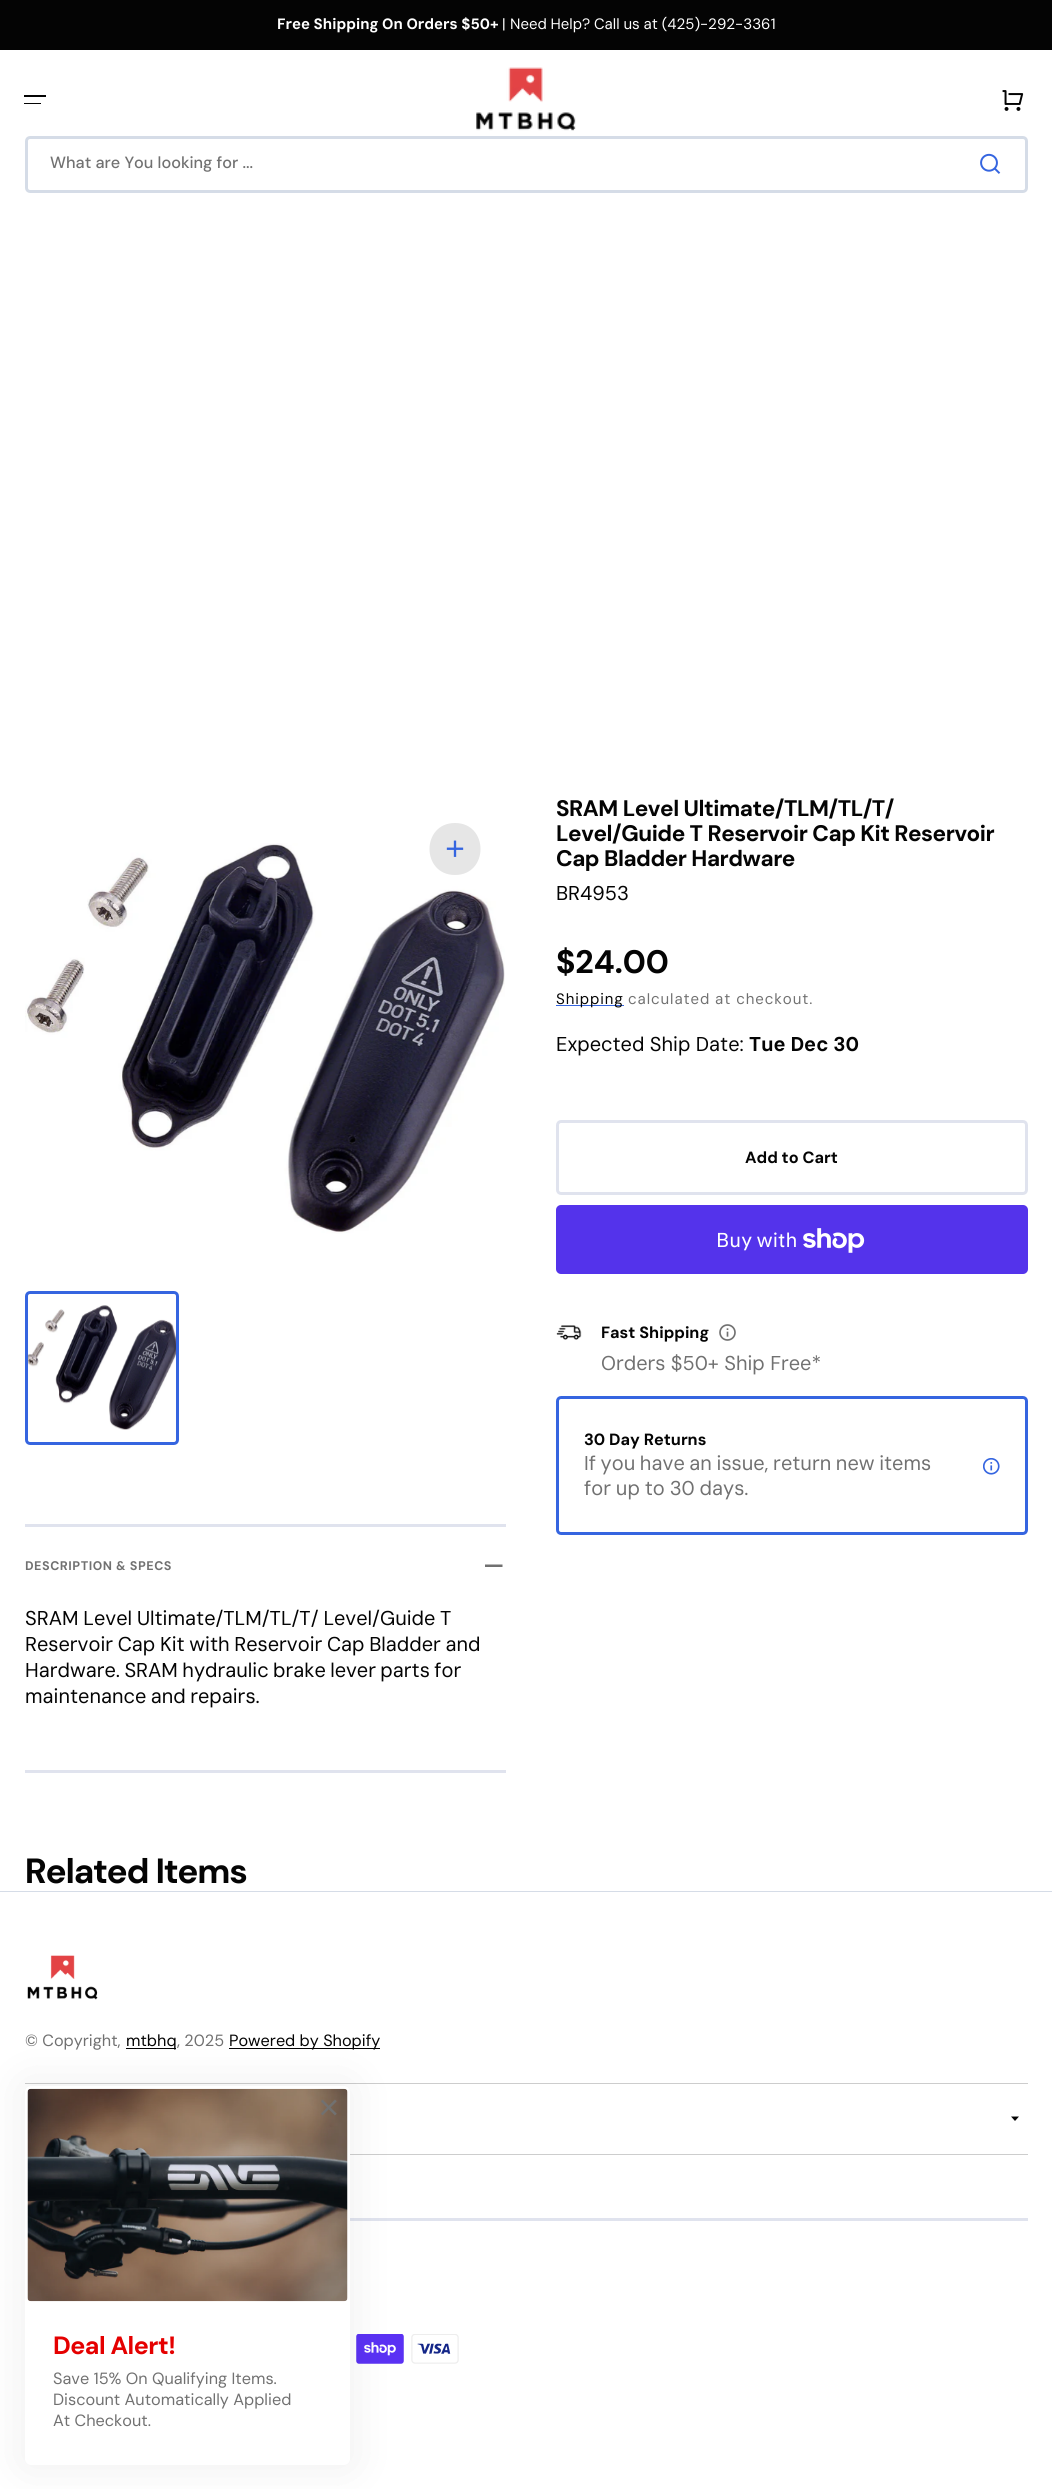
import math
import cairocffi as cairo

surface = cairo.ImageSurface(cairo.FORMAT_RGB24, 1052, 2489)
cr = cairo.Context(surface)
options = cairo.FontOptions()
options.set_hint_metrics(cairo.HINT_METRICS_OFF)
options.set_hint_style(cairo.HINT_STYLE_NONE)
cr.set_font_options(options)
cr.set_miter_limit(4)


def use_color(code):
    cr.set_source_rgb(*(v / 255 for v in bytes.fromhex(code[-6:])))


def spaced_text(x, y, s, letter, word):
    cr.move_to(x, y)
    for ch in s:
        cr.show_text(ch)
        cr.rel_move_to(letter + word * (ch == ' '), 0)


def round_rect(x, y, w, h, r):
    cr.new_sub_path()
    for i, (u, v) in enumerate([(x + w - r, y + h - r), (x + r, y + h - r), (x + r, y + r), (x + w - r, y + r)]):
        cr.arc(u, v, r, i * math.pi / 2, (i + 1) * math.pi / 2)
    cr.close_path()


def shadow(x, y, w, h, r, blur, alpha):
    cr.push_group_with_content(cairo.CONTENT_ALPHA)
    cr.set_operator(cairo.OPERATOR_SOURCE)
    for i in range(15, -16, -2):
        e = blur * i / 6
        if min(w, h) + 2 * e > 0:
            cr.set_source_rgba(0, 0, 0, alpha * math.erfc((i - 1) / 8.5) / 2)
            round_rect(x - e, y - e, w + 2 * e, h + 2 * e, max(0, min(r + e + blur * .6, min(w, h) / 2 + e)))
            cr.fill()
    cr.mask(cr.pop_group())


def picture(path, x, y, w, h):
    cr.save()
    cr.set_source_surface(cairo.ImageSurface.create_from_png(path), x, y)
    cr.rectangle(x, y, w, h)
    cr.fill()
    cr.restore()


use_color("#ffffff")
cr.paint()
use_color("#040404")
cr.rectangle(0, 0, 1052, 50)
cr.fill()
cr.select_font_face("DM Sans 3", cairo.FONT_SLANT_NORMAL, cairo.FONT_WEIGHT_BOLD)
cr.set_font_size(15)
use_color("#ffffff")
cr.move_to(277, 29)
cr.show_text("Free Shipping On Orders $50+")
cr.select_font_face("DM Sans")
cr.move_to(502, 29)
cr.show_text("|")
spaced_text(510, 29, "Need Help? Call us at (425)-292-3361", 0, -0.25)
use_color("#040404")
cr.rectangle(24, 95, 22, 2)
cr.fill()
cr.rectangle(24, 103, 17, 1)
cr.fill()
picture("img1.png", 476, 67, 100, 64)
picture("img2.png", 1002, 90, 22, 21)
round_rect(26.5, 137.5, 1000, 54, 3.5)
use_color("#d5dce7")
cr.set_line_width(3)
cr.stroke()
cr.select_font_face("DM Sans Medium")
cr.set_font_size(16.25)
use_color("#717171")
cr.move_to(50, 168)
cr.show_text("What are You looking for ...")
picture("img3.png", 980, 153, 21, 21)
cr.select_font_face("DM Sans", cairo.FONT_SLANT_NORMAL, cairo.FONT_WEIGHT_BOLD)
cr.set_font_size(22.5)
use_color("#040404")
spaced_text(556, 816, "SRAM Level Ultimate/TLM/TL/T/", -0.45, 0)
spaced_text(556, 841, "Level/Guide T Reservoir Cap Kit Reservoir", -0.45, 0)
spaced_text(556, 866, "Cap Bladder Hardware", -0.45, 0)
cr.select_font_face("DM Sans")
cr.set_font_size(20)
cr.move_to(556, 900)
cr.show_text("BR4953")
cr.select_font_face("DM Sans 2", cairo.FONT_SLANT_NORMAL, cairo.FONT_WEIGHT_BOLD)
cr.set_font_size(32.5)
cr.move_to(556, 973)
cr.show_text("$24.00")
use_color("#3565e0")
cr.rectangle(556, 1005, 68, 1)
cr.fill()
cr.select_font_face("DM Sans")
cr.set_font_size(15)
use_color("#040404")
spaced_text(556, 1004, "Shipping", 0.9, 0)
use_color("#717171")
spaced_text(628, 1004, "calculated at checkout.", 0.9, 0)
cr.set_font_size(20)
use_color("#040404")
cr.move_to(556, 1051)
cr.show_text("Expected Ship Date:")
cr.select_font_face("DM Sans 3", cairo.FONT_SLANT_NORMAL, cairo.FONT_WEIGHT_BOLD)
cr.move_to(749, 1051)
cr.show_text("Tue Dec 30")
round_rect(557.5, 1121.5, 469, 72, 3.5)
use_color("#e0e3ee")
cr.stroke()
cr.select_font_face("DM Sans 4", cairo.FONT_SLANT_NORMAL, cairo.FONT_WEIGHT_BOLD)
cr.set_font_size(16.25)
use_color("#040404")
cr.move_to(745, 1163)
cr.show_text("Add to Cart")
use_color("#5433eb")
round_rect(556, 1205, 472, 69, 5)
cr.fill()
cr.select_font_face("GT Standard")
cr.set_font_size(20)
use_color("#ffffff")
cr.move_to(716, 1247)
cr.show_text("Buy with")
picture("img4.png", 803, 1228, 62, 25)
picture("img5.png", 556, 1325, 26, 15)
cr.select_font_face("DM Sans 4", cairo.FONT_SLANT_NORMAL, cairo.FONT_WEIGHT_BOLD)
cr.set_font_size(16.25)
use_color("#040404")
cr.move_to(601, 1338)
cr.show_text("Fast Shipping")
picture("img6.png", 719, 1324, 17, 17)
cr.select_font_face("DM Sans")
cr.set_font_size(20)
use_color("#717171")
cr.move_to(601, 1370)
cr.show_text("Orders $50+ Ship Free*")
round_rect(557.5, 1397.5, 469, 136, 3.5)
use_color("#3565e0")
cr.stroke()
cr.select_font_face("DM Sans 4", cairo.FONT_SLANT_NORMAL, cairo.FONT_WEIGHT_BOLD)
cr.set_font_size(16.25)
use_color("#040404")
cr.move_to(584, 1445)
cr.show_text("30 Day Returns")
cr.select_font_face("DM Sans")
cr.set_font_size(20)
use_color("#717171")
spaced_text(584, 1470, "If you have an issue, return new items", 0, -0.75)
spaced_text(584, 1495, "for up to 30 days.", 0, -0.5)
picture("img7.png", 983, 1458, 17, 17)
picture("img9.png", 25, 843, 480, 391)
use_color("#e6e6e6")
cr.new_path()
cr.move_to(455, 823)
cr.curve_to(489, 823, 489, 875, 455, 875)
cr.curve_to(421, 875, 421, 823, 455, 823)
cr.close_path()
cr.fill()
picture("img8.png", 446, 840, 18, 17)
picture("img10.png", 28, 1305, 148, 125)
round_rect(26.5, 1292.5, 151, 151, 3.5)
use_color("#3565e0")
cr.stroke()
use_color("#e0e3ee")
cr.rectangle(25, 1524, 481, 3)
cr.fill()
cr.rectangle(25, 1770, 481, 3)
cr.fill()
cr.select_font_face("DM Sans 3", cairo.FONT_SLANT_NORMAL, cairo.FONT_WEIGHT_BOLD)
cr.set_font_size(12.5)
use_color("#717171")
spaced_text(25, 1570, "DESCRIPTION & SPECS", 0.5, 0)
cr.new_path()
cr.move_to(492.5, 1564.5)
cr.line_to(502.5, 1564.5)
cr.line_to(502.5, 1567)
cr.line_to(485, 1567)
cr.line_to(485, 1564.5)
cr.close_path()
cr.fill()
cr.select_font_face("DM Sans")
cr.set_font_size(20)
use_color("#040404")
spaced_text(25, 1625, "SRAM Level Ultimate/TLM/TL/T/ Level/Guide T", 0, -0.5)
spaced_text(25, 1651, "Reservoir Cap Kit with Reservoir Cap Bladder and", 0, -0.75)
spaced_text(25, 1677, "Hardware. SRAM hydraulic brake lever parts for", 0, -1)
spaced_text(25, 1703, "maintenance and repairs.", 0, -1)
cr.select_font_face("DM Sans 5", cairo.FONT_SLANT_NORMAL, cairo.FONT_WEIGHT_BOLD)
cr.set_font_size(35)
spaced_text(25, 1883, "Related Items", -0.75, 0)
use_color("#d5dce7")
cr.rectangle(0, 1891, 1052, 1)
cr.fill()
picture("img11.png", 27, 1955, 71, 45)
cr.select_font_face("DM Sans 2")
cr.set_font_size(16.25)
use_color("#717171")
cr.move_to(25, 2046)
cr.show_text("© Copyright,")
use_color("#040404")
cr.rectangle(126, 2048, 50, 1)
cr.fill()
cr.move_to(126, 2046)
cr.show_text("mtbhq")
use_color("#717171")
cr.move_to(177, 2046)
cr.show_text(", 2025")
use_color("#040404")
cr.rectangle(229, 2048, 151, 1)
cr.fill()
cr.move_to(229, 2046)
cr.show_text("Powered by Shopify")
use_color("#cdcdcd")
cr.rectangle(25, 2083, 1003, 1)
cr.fill()
cr.rectangle(350, 2154, 678, 1)
cr.fill()
use_color("#040404")
cr.new_path()
cr.move_to(1015, 2121)
cr.line_to(1011, 2116.5)
cr.line_to(1019, 2116.5)
cr.close_path()
cr.fill()
use_color("#e0e3ee")
cr.rectangle(350, 2218, 678, 3)
cr.fill()
picture("img12.png", 356, 2334, 48, 30)
picture("img13.png", 411, 2334, 48, 30)
use_color("#000000")
shadow(25, 2086, 325, 379, 0, 25, 0.07)
use_color("#ffffff")
round_rect(25, 2086, 325, 379, 6)
cr.fill()
picture("img14.png", 27, 2088, 321, 214)
picture("img15.png", 321, 2099, 16, 17)
cr.select_font_face("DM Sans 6", cairo.FONT_SLANT_NORMAL, cairo.FONT_WEIGHT_BOLD)
cr.set_font_size(25)
use_color("#e50000")
spaced_text(53, 2354, "Deal Alert!", -0.5, 0)
cr.select_font_face("DM Sans 2")
cr.set_font_size(16.25)
use_color("#717171")
cr.move_to(53, 2384)
cr.show_text("Save 15% On Qualifying Items.")
cr.move_to(53, 2405)
cr.show_text("Discount Automatically Applied")
cr.move_to(53, 2426)
cr.show_text("At Checkout.")
surface.write_to_png("result.png")
